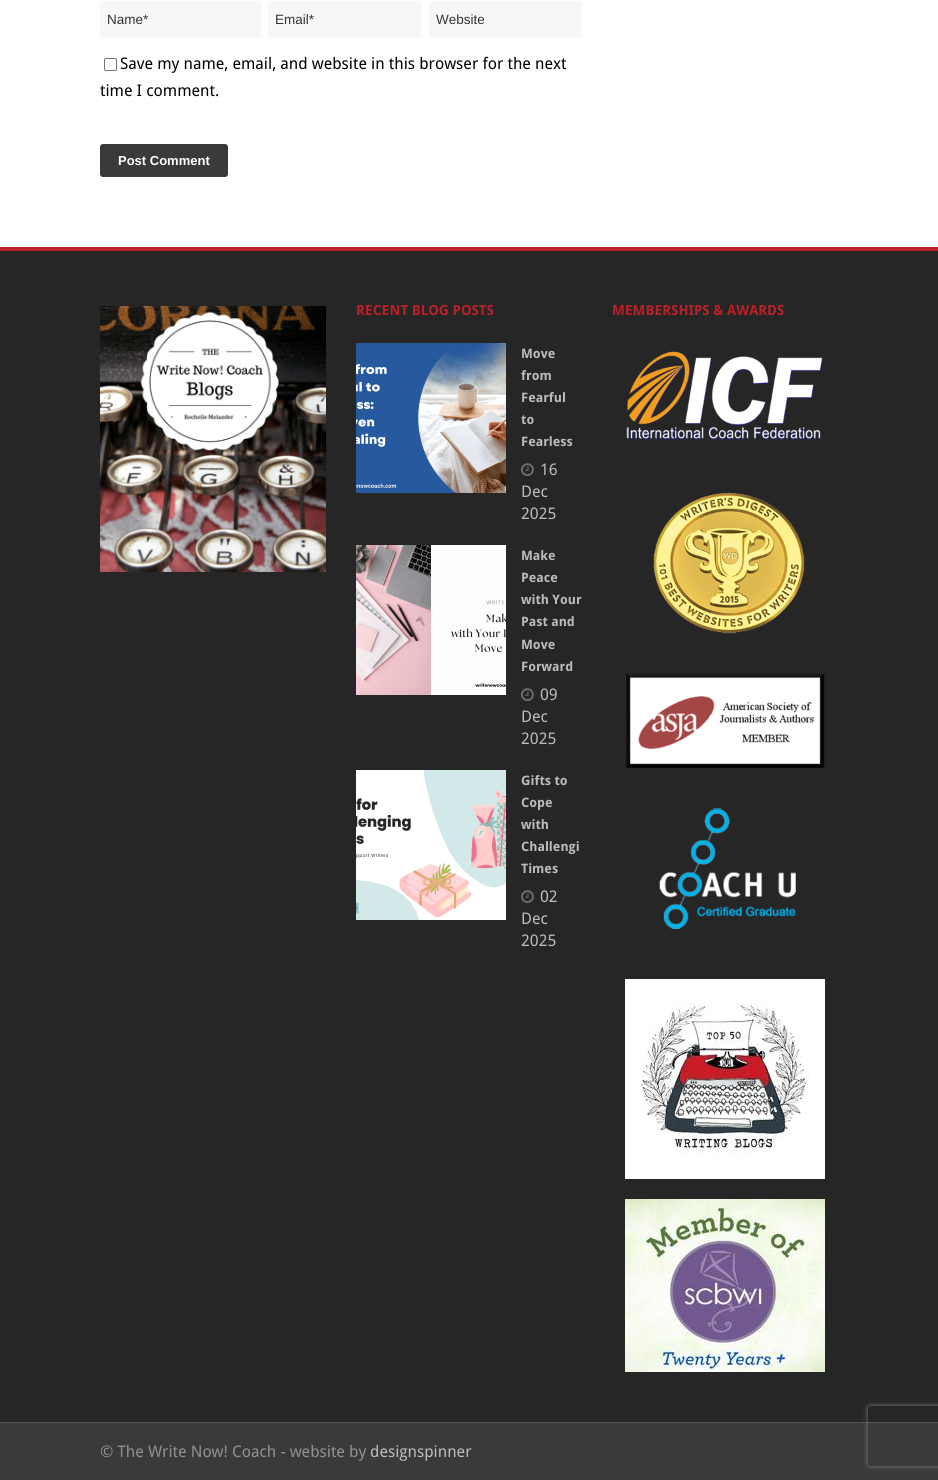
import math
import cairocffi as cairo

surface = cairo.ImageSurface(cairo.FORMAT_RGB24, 938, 1480)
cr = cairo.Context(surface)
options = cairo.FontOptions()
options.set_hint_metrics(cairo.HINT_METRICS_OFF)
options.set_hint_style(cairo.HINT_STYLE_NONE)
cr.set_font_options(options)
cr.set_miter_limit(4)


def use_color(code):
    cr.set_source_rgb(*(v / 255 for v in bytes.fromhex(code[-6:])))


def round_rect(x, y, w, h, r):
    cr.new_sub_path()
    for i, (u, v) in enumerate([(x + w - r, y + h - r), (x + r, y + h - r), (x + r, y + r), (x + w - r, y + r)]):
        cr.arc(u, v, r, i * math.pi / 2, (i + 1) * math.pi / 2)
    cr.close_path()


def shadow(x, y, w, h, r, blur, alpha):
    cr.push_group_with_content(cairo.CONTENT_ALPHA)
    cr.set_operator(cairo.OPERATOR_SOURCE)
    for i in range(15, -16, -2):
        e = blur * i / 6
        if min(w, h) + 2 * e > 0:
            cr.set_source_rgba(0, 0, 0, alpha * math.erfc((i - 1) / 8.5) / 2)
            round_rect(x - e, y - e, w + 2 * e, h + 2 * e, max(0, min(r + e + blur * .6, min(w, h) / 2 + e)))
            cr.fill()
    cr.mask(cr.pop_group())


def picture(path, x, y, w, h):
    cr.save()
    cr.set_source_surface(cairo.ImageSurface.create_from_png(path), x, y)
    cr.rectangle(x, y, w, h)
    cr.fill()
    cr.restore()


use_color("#ffffff")
cr.paint()
use_color("#f7f7f7")
round_rect(100, 1, 161, 37, 3)
cr.fill()
cr.select_font_face("Liberation Sans")
cr.set_font_size(13.5)
use_color("#333333")
cr.move_to(107, 24)
cr.show_text("Name*")
use_color("#f7f7f7")
round_rect(268, 1, 153, 37, 3)
cr.fill()
use_color("#333333")
cr.move_to(275, 24)
cr.show_text("Email*")
use_color("#f7f7f7")
round_rect(429, 1, 153, 37, 3)
cr.fill()
use_color("#333333")
cr.move_to(436, 24)
cr.show_text("Website")
round_rect(104.5, 58.5, 12, 12, 1.5)
use_color("#767676")
cr.set_line_width(1)
cr.stroke()
cr.select_font_face("Droid Sans")
cr.set_font_size(16)
use_color("#000000")
cr.move_to(120, 69)
cr.show_text("Save my name, email, and website in this browser for the next")
cr.move_to(100, 96)
cr.show_text("time I comment.")
use_color("#3a3a3b")
round_rect(100, 144, 128, 33, 3)
cr.fill()
cr.select_font_face("Liberation Sans", cairo.FONT_SLANT_NORMAL, cairo.FONT_WEIGHT_BOLD)
cr.set_font_size(13)
use_color("#ffffff")
cr.move_to(118, 165)
cr.show_text("Post Comment")
use_color("#262626")
cr.rectangle(0, 251, 938, 1171)
cr.fill()
use_color("#ba2029")
cr.rectangle(0, 247, 938, 4)
cr.fill()
picture("img1.png", 100, 306, 226, 266)
cr.select_font_face("Droid Sans", cairo.FONT_SLANT_NORMAL, cairo.FONT_WEIGHT_BOLD)
cr.set_font_size(14)
cr.move_to(356, 315)
cr.show_text("RECENT BLOG POSTS")
picture("img2.png", 356, 343, 150, 150)
cr.set_font_size(13)
use_color("#bcbcbc")
cr.move_to(521, 358)
cr.show_text("Move")
cr.move_to(521, 380)
cr.show_text("from")
cr.move_to(521, 402)
cr.show_text("Fearful")
cr.move_to(521, 424)
cr.show_text("to")
cr.move_to(521, 446)
cr.show_text("Fearless")
picture("img3.png", 521, 463, 13, 13)
cr.select_font_face("Droid Sans")
cr.set_font_size(16)
cr.move_to(540, 475)
cr.show_text("16")
cr.move_to(521, 497)
cr.show_text("Dec")
cr.move_to(521, 519)
cr.show_text("2025")
picture("img4.png", 356, 545, 150, 150)
cr.select_font_face("Droid Sans", cairo.FONT_SLANT_NORMAL, cairo.FONT_WEIGHT_BOLD)
cr.set_font_size(13)
cr.move_to(521, 560)
cr.show_text("Make")
cr.move_to(521, 582)
cr.show_text("Peace")
cr.move_to(521, 604)
cr.show_text("with Your")
cr.move_to(521, 626)
cr.show_text("Past and")
cr.move_to(521, 649)
cr.show_text("Move")
cr.move_to(521, 671)
cr.show_text("Forward")
picture("img3.png", 521, 688, 13, 13)
cr.select_font_face("Droid Sans")
cr.set_font_size(16)
cr.move_to(540, 700)
cr.show_text("09")
cr.move_to(521, 722)
cr.show_text("Dec")
cr.move_to(521, 744)
cr.show_text("2025")
picture("img5.png", 356, 770, 150, 150)
cr.select_font_face("Droid Sans", cairo.FONT_SLANT_NORMAL, cairo.FONT_WEIGHT_BOLD)
cr.set_font_size(13)
cr.move_to(521, 785)
cr.show_text("Gifts to")
cr.move_to(521, 807)
cr.show_text("Cope")
cr.move_to(521, 829)
cr.show_text("with")
cr.move_to(521, 851)
cr.show_text("Challengi")
cr.move_to(521, 873)
cr.show_text("Times")
picture("img3.png", 521, 890, 13, 13)
cr.select_font_face("Droid Sans")
cr.set_font_size(16)
cr.move_to(540, 902)
cr.show_text("02")
cr.move_to(521, 924)
cr.show_text("Dec")
cr.move_to(521, 946)
cr.show_text("2025")
cr.select_font_face("Droid Sans", cairo.FONT_SLANT_NORMAL, cairo.FONT_WEIGHT_BOLD)
cr.set_font_size(14)
use_color("#ba2029")
cr.move_to(612, 315)
cr.show_text("MEMBERSHIPS & AWARDS")
picture("img6.png", 626, 351, 197, 89)
picture("img7.png", 653, 492, 152, 142)
picture("img8.png", 626, 673, 199, 95)
picture("img9.png", 659, 808, 137, 121)
picture("img10.png", 625, 979, 200, 200)
picture("img11.png", 625, 1199, 200, 173)
use_color("#3a3a3b")
cr.rectangle(0, 1423, 938, 57)
cr.fill()
use_color("#555555")
cr.rectangle(0, 1422, 938, 1)
cr.fill()
cr.select_font_face("Droid Sans")
cr.set_font_size(16)
use_color("#919191")
cr.move_to(100, 1457)
cr.show_text("© The Write Now! Coach - website by")
use_color("#bcbcbc")
cr.move_to(370, 1457)
cr.show_text("designspinner")
cr.save()
cr.set_fill_rule(cairo.FILL_RULE_EVEN_ODD)
cr.new_path()
cr.move_to(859, 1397)
cr.line_to(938, 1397)
cr.line_to(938, 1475)
cr.line_to(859, 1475)
cr.close_path()
cr.move_to(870, 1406)
cr.line_to(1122, 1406)
cr.curve_to(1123, 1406, 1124, 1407, 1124, 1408)
cr.line_to(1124, 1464)
cr.curve_to(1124, 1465, 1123, 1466, 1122, 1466)
cr.line_to(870, 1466)
cr.curve_to(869, 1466, 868, 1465, 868, 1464)
cr.line_to(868, 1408)
cr.curve_to(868, 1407, 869, 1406, 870, 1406)
cr.close_path()
cr.clip()
use_color("#808080")
shadow(868, 1406, 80, 60, 2, 2.5, 1)
cr.restore()
surface.write_to_png("result.png")
